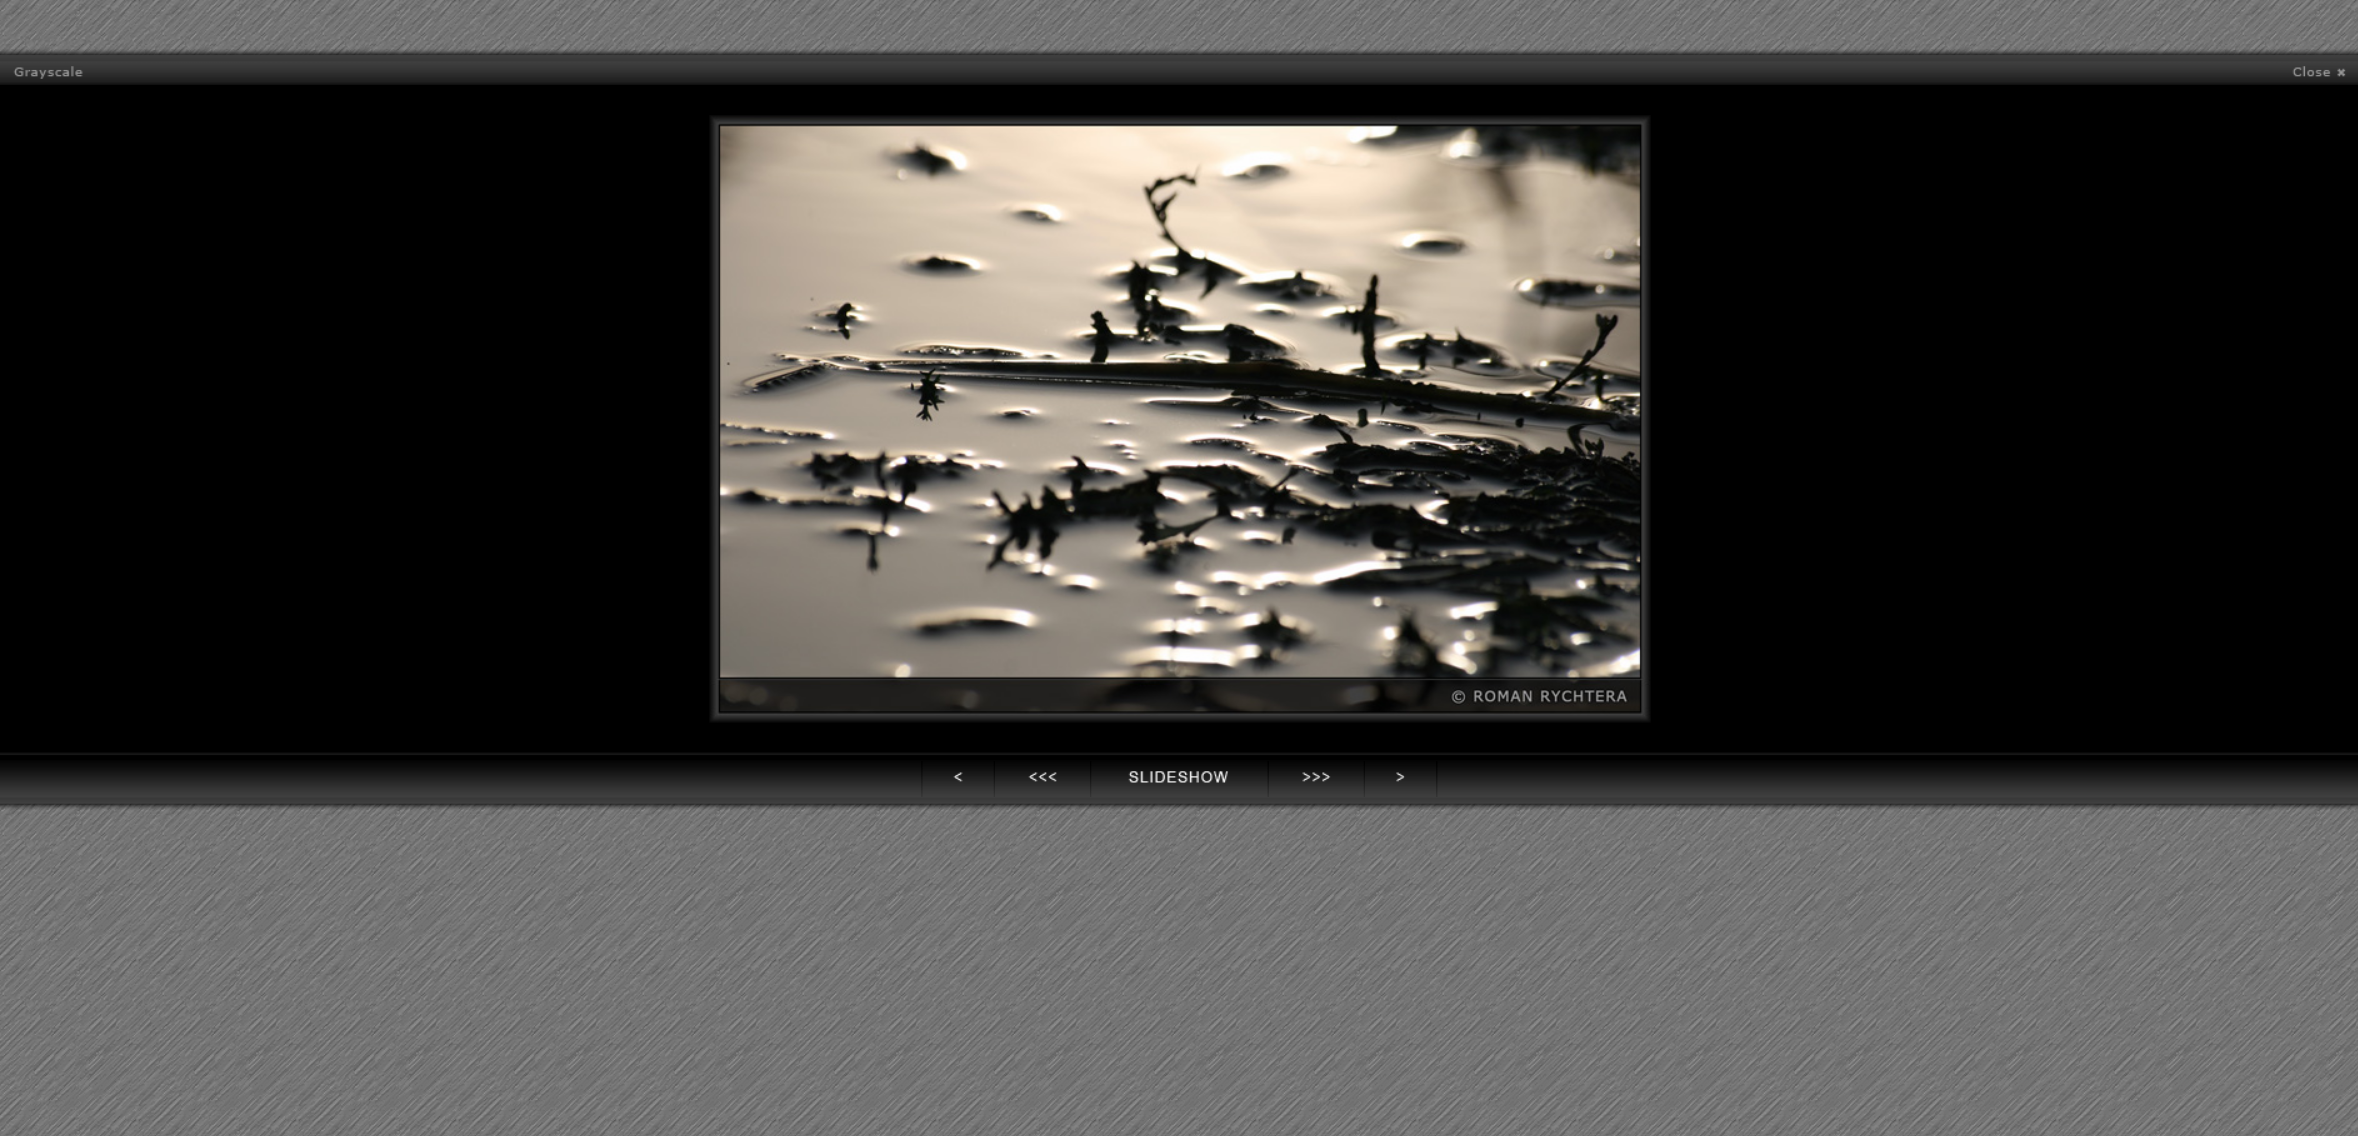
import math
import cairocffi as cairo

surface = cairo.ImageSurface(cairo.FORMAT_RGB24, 2358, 1136)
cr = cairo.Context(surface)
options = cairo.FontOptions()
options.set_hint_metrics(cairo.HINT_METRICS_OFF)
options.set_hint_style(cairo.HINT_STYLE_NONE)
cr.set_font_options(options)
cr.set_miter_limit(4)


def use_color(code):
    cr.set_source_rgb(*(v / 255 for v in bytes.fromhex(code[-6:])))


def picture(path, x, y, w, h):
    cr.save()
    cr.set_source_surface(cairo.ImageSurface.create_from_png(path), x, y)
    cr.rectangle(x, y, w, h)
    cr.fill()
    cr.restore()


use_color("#ffffff")
cr.paint()
picture("img1.png", 0, 0, 2358, 1136)
picture("img2.png", 0, 49, 2358, 36)
picture("img3.png", 13, 66, 70, 13)
picture("img4.png", 2292, 66, 54, 11)
use_color("#000000")
cr.rectangle(0, 85, 2358, 668)
cr.fill()
picture("img5.png", 709, 115, 942, 608)
picture("img6.png", 0, 752, 2358, 58)
picture("img7.png", 921, 761, 517, 36)
picture("img8.png", 922, 761, 72, 36)
picture("img9.png", 995, 761, 95, 36)
picture("img10.png", 1091, 761, 177, 36)
picture("img11.png", 1269, 761, 95, 36)
picture("img12.png", 1365, 761, 71, 36)
surface.write_to_png("result.png")
